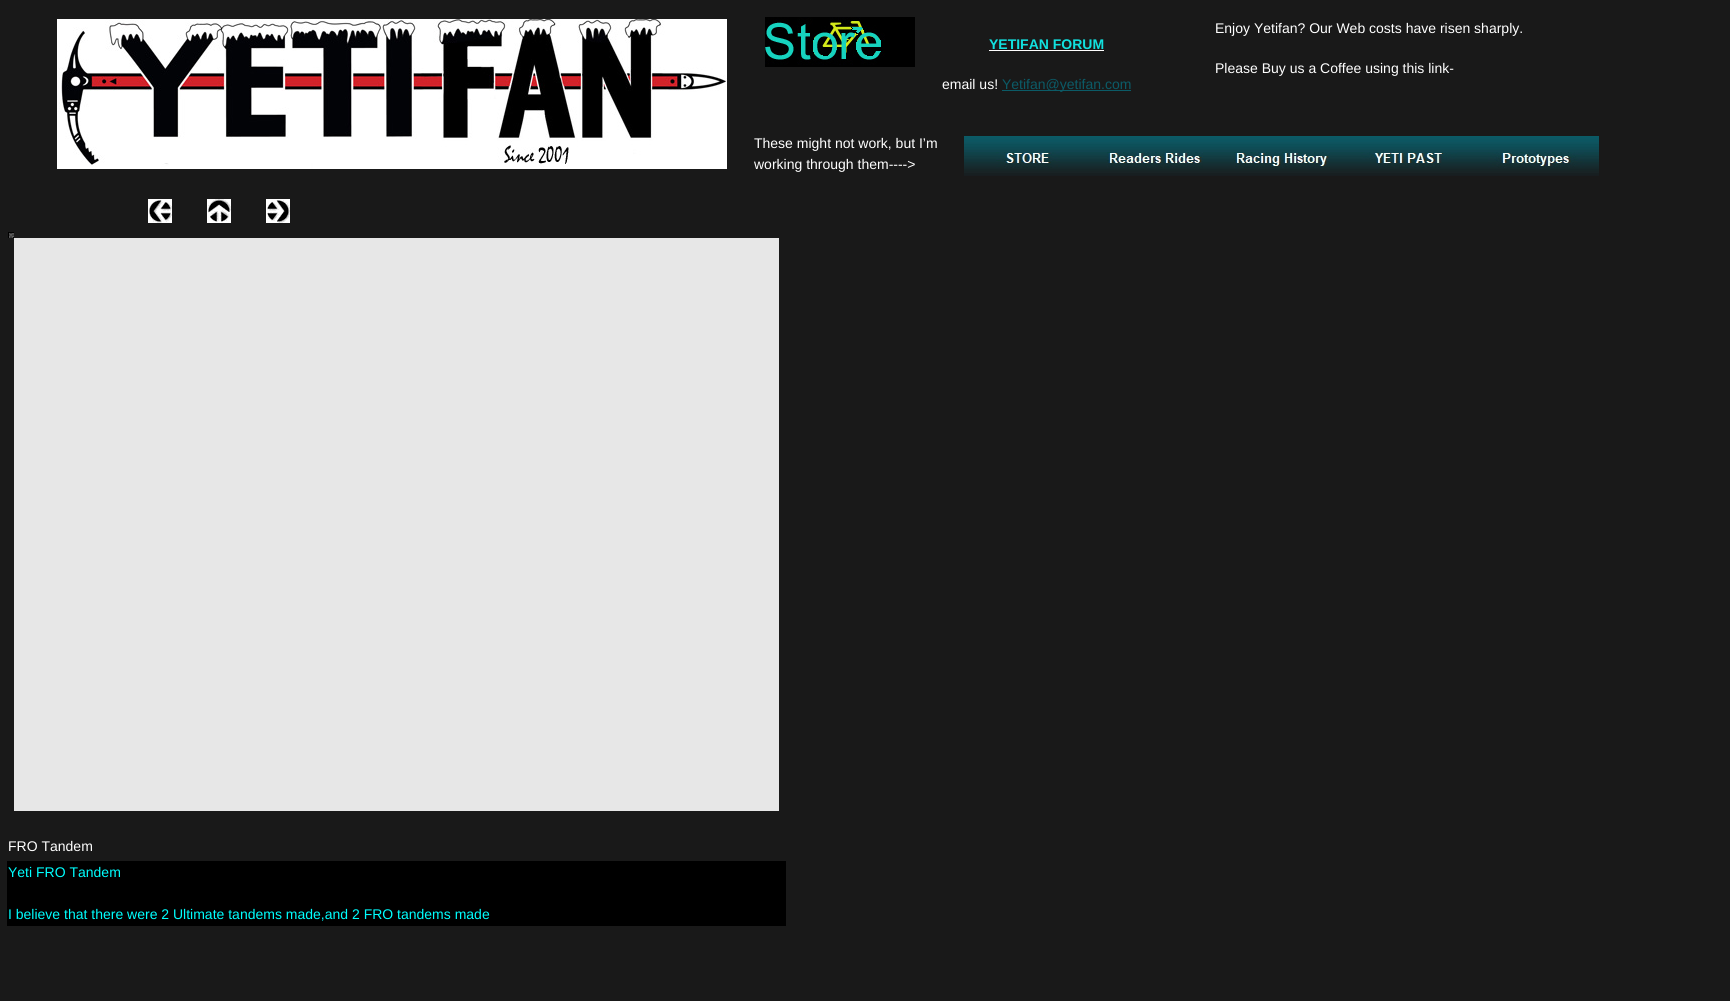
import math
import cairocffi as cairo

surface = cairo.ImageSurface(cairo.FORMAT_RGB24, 1730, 1001)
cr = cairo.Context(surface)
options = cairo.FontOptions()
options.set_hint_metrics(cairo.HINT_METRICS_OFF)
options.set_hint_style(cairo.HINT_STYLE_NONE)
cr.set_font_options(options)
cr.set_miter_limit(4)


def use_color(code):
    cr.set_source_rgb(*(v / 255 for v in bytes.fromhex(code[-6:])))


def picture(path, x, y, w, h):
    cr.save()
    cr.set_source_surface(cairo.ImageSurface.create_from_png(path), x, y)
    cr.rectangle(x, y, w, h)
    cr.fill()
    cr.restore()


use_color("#191919")
cr.paint()
picture("img1.png", 57, 19, 670, 150)
picture("img2.png", 148, 199, 24, 24)
picture("img3.png", 207, 199, 24, 24)
picture("img4.png", 266, 199, 24, 24)
picture("img5.png", 765, 17, 150, 50)
cr.select_font_face("Liberation Sans", cairo.FONT_SLANT_NORMAL, cairo.FONT_WEIGHT_BOLD)
cr.set_font_size(14)
use_color("#11e1df")
cr.move_to(989, 49)
cr.show_text("YETIFAN FORUM")
use_color("#ffffff")
cr.rectangle(989, 50, 115, 1)
cr.fill()
cr.select_font_face("Liberation Sans")
cr.move_to(942, 89)
cr.show_text("email us!")
use_color("#0b5b67")
cr.rectangle(1002, 90, 129, 1)
cr.fill()
cr.move_to(1002, 89)
cr.show_text("Yetifan@yetifan.com")
use_color("#ffffff")
cr.move_to(1215, 33)
cr.show_text("Enjoy Yetifan? Our Web costs have risen sharply.")
cr.move_to(1215, 73)
cr.show_text("Please Buy us a Coffee using this link-")
cr.move_to(754, 148)
cr.show_text("These might not work, but I’m")
cr.move_to(754, 169)
cr.show_text("working through them---->")
picture("img6.png", 964, 136, 127, 40)
picture("img7.png", 1091, 136, 127, 40)
picture("img8.png", 1218, 136, 127, 40)
picture("img9.png", 1345, 136, 127, 40)
picture("img10.png", 1472, 136, 127, 40)
picture("img11.png", 8, 232, 6, 6)
use_color("#e7e7e7")
cr.rectangle(14, 238, 765, 573)
cr.fill()
use_color("#ffffff")
cr.move_to(8, 851)
cr.show_text("FRO Tandem")
use_color("#000000")
cr.rectangle(7, 861, 779, 65)
cr.fill()
use_color("#00ffff")
cr.move_to(8, 877)
cr.show_text("Yeti FRO Tandem")
cr.move_to(8, 919)
cr.show_text("I believe that there were 2 Ultimate tandems made,and 2 FRO tandems made")
surface.write_to_png("result.png")
